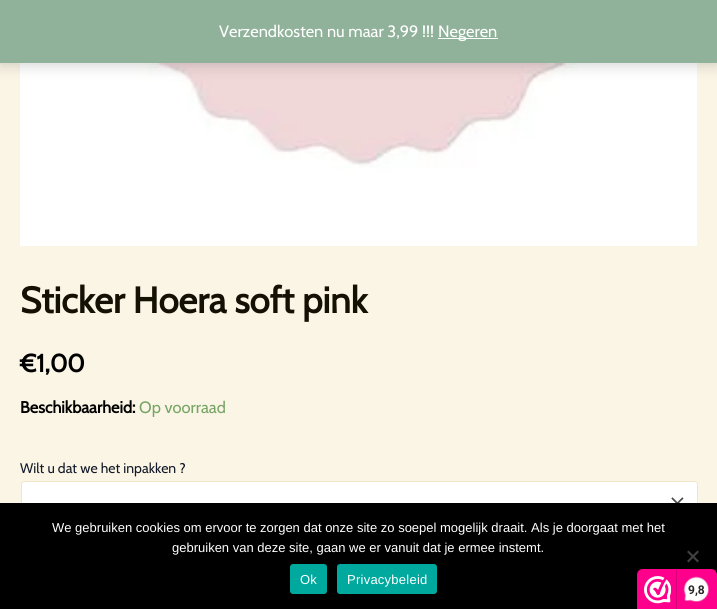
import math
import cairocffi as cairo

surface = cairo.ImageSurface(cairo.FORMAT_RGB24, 717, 609)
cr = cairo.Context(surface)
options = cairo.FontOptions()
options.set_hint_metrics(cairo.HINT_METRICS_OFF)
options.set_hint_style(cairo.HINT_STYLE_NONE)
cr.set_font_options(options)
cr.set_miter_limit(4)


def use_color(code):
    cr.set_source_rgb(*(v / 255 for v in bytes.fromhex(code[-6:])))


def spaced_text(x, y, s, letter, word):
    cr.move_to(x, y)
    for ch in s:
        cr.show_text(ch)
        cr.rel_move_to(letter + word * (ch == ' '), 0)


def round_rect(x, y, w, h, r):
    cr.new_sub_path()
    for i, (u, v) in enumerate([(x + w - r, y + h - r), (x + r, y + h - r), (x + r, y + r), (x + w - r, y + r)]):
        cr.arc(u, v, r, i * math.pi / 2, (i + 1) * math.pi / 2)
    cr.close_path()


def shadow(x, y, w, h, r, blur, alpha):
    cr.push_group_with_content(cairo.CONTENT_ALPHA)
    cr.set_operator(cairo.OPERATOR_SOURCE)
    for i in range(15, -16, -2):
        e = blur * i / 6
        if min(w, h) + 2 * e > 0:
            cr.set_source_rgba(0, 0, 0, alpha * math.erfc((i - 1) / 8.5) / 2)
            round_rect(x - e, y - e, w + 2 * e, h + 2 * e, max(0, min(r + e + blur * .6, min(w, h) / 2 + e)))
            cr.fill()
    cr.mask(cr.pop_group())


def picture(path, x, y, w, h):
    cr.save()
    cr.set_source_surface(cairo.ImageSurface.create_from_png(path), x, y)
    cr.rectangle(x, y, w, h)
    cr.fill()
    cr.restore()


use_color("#faf5e5")
cr.paint()
picture("img1.png", 20, 63, 677, 183)
use_color("#000000")
shadow(0, 1, 717, 63, 0, 8, 0.2)
use_color("#90b29a")
cr.rectangle(0, 0, 717, 63)
cr.fill()
cr.select_font_face("Cabin")
cr.set_font_size(16.4)
use_color("#ffffff")
cr.move_to(219, 37)
cr.show_text("Verzendkosten nu maar 3,99 !!!")
cr.rectangle(438, 38, 60, 1)
cr.fill()
cr.move_to(438, 37)
cr.show_text("Negeren")
cr.select_font_face("Cabin", cairo.FONT_SLANT_NORMAL, cairo.FONT_WEIGHT_BOLD)
cr.set_font_size(36.5)
use_color("#141004")
cr.move_to(20, 313)
cr.show_text("Sticker Hoera soft pink")
cr.set_font_size(25)
use_color("#000000")
cr.move_to(20, 372)
cr.show_text("€1,00")
cr.set_font_size(16.4)
cr.move_to(20, 413)
cr.show_text("Beschikbaarheid:")
cr.select_font_face("Cabin")
use_color("#77a464")
cr.move_to(139, 413)
cr.show_text("Op voorraad")
cr.set_font_size(14)
use_color("#111827")
cr.move_to(20, 473)
cr.show_text("Wilt u dat we het inpakken ?")
use_color("#ffffff")
round_rect(21, 481, 677, 40, 3)
cr.fill()
picture("img2.png", 671, 497, 13, 6)
round_rect(21.5, 481.5, 676, 39, 2.5)
use_color("#f0e6c5")
cr.set_line_width(1)
cr.stroke()
use_color("#000000")
cr.rectangle(0, 503, 717, 106)
cr.fill()
cr.select_font_face("Liberation Sans")
cr.set_font_size(13)
use_color("#ffffff")
cr.move_to(52, 532)
cr.show_text("We gebruiken cookies om ervoor te zorgen dat onze site zo soepel mogelijk draait. Als je doorgaat met het")
cr.move_to(172, 552)
cr.show_text("gebruiken van deze site, gaan we er vanuit dat je ermee instemt.")
use_color("#404040")
cr.new_path()
cr.move_to(697.5, 550.5)
cr.line_to(699, 552)
cr.line_to(688.5, 562.5)
cr.line_to(687, 561)
cr.close_path()
cr.fill()
cr.new_path()
cr.move_to(687, 552)
cr.line_to(688.5, 550.5)
cr.line_to(699, 561)
cr.line_to(697.5, 562.5)
cr.close_path()
cr.fill()
use_color("#00a99d")
round_rect(290, 564, 37, 30, 3)
cr.fill()
use_color("#ffffff")
spaced_text(300, 584, "Ok", 0.25, 0)
use_color("#00a99d")
round_rect(337, 564, 100, 30, 3)
cr.fill()
use_color("#ffffff")
spaced_text(347, 584, "Privacybeleid", 0.25, 0)
use_color("#fe008c")
cr.new_path()
cr.move_to(643, 569)
cr.line_to(711, 569)
cr.curve_to(714.5, 569, 717, 571.5, 717, 575)
cr.line_to(717, 609)
cr.line_to(637, 609)
cr.line_to(637, 575)
cr.curve_to(637, 571.5, 639.5, 569, 643, 569)
cr.close_path()
cr.fill()
picture("img3.png", 644, 576, 27, 28)
use_color("#d80077")
cr.rectangle(676, 570, 1, 39)
cr.fill()
picture("img4.png", 683, 576, 26, 26)
cr.select_font_face("Roboto", cairo.FONT_SLANT_NORMAL, cairo.FONT_WEIGHT_BOLD)
cr.set_font_size(12)
use_color("#272626")
cr.move_to(688, 594)
cr.show_text("9,8")
surface.write_to_png("result.png")
